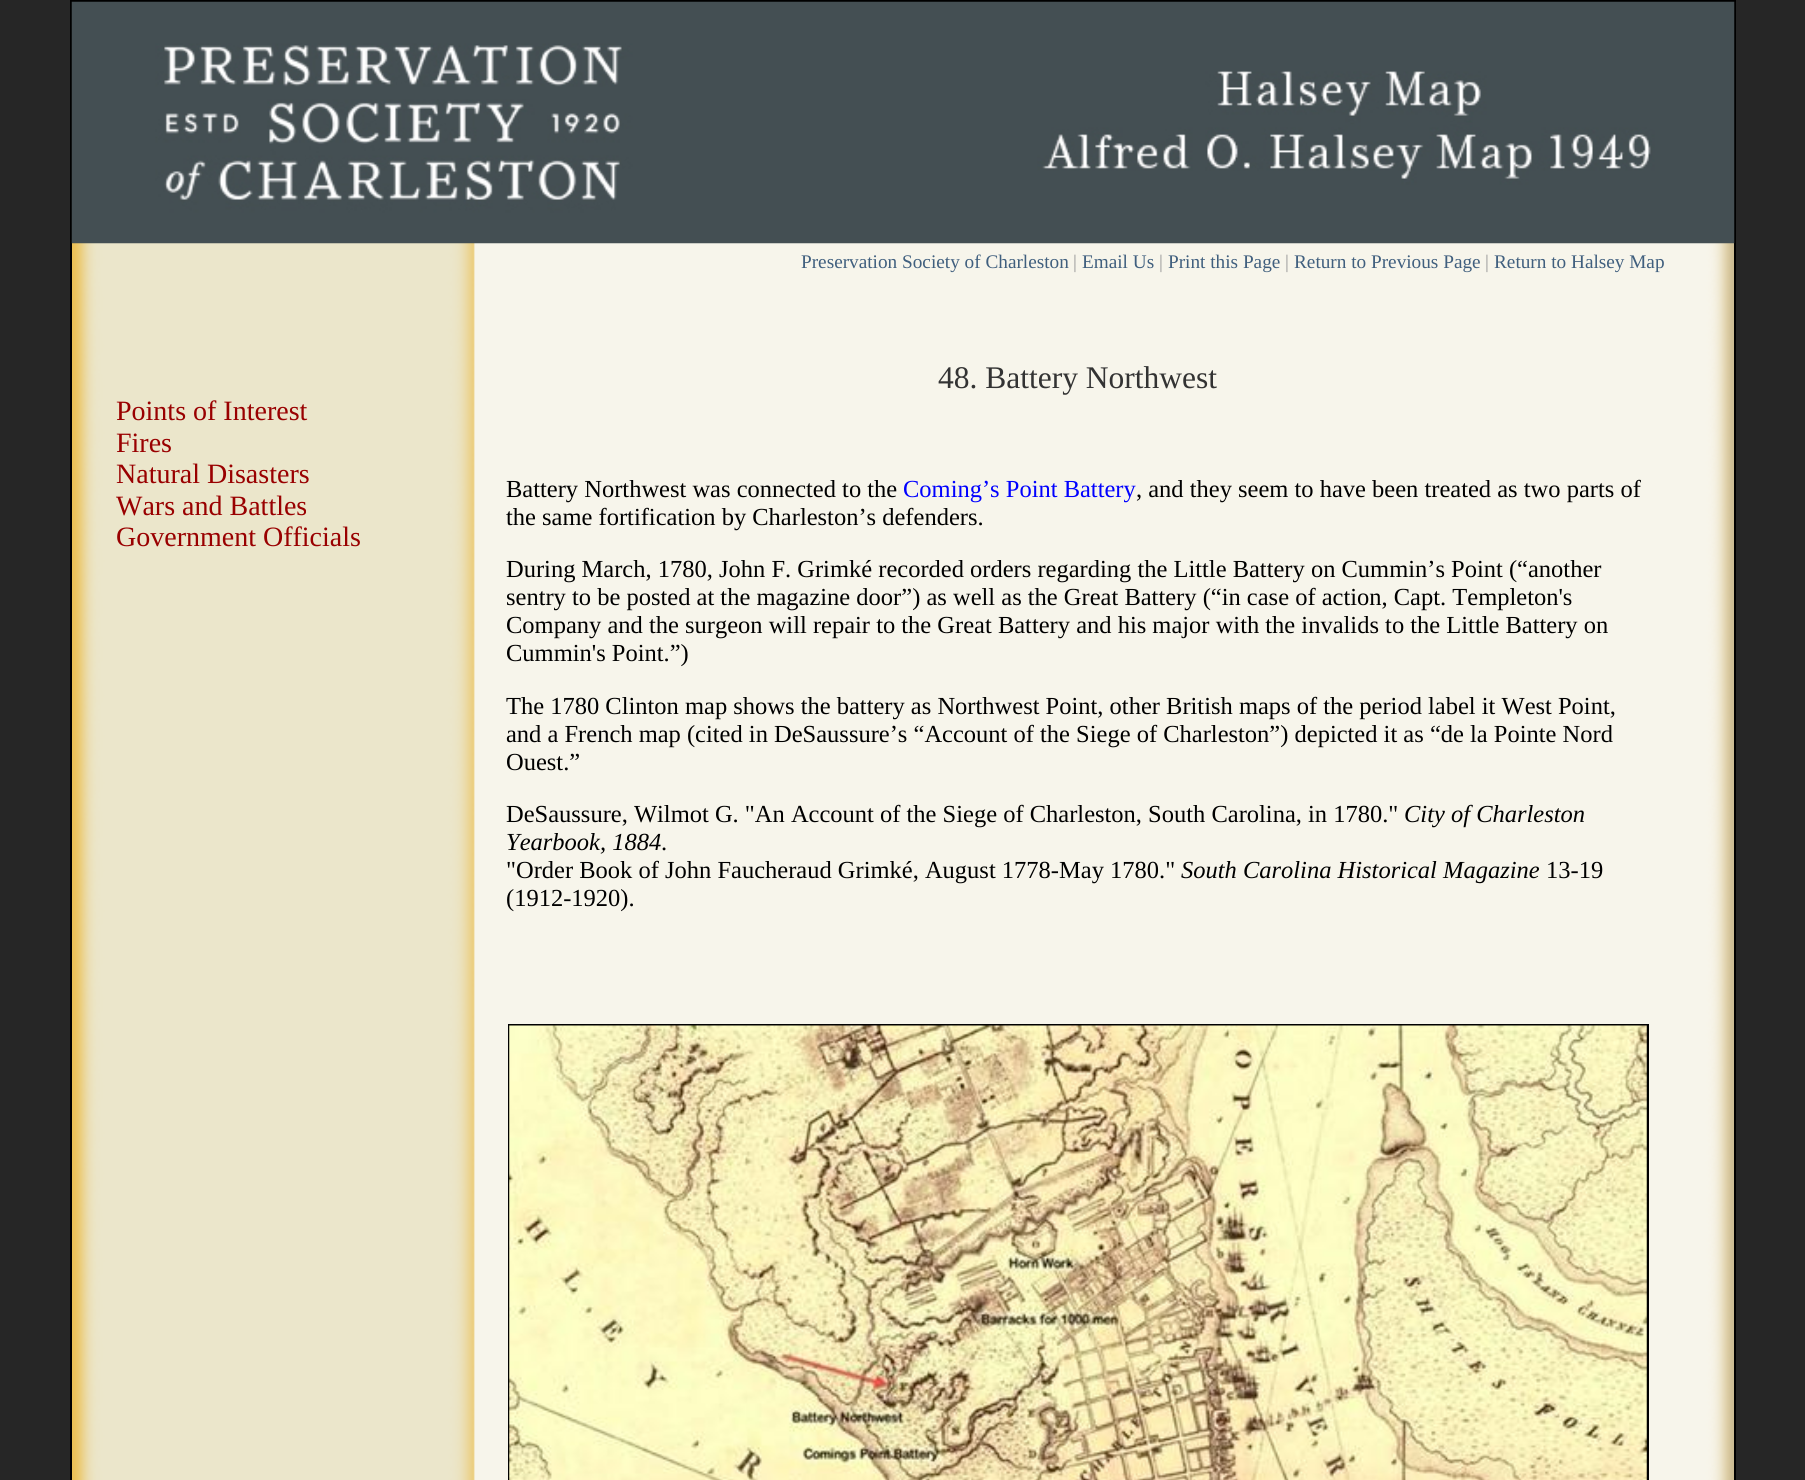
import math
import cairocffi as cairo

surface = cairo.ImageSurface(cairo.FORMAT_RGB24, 1805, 1480)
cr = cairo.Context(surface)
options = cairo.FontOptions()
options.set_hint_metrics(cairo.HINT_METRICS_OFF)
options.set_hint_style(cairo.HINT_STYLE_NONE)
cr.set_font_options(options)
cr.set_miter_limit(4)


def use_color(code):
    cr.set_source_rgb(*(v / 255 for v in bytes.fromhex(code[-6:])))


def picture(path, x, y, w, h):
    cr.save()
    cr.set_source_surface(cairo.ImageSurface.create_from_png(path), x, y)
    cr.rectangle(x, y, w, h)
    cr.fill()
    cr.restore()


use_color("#262626")
cr.paint()
picture("img1.png", 72, 243, 1662, 1237)
cr.rectangle(71, 1, 1664, 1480)
use_color("#000000")
cr.stroke()
picture("img2.png", 71, 1, 1664, 243)
cr.select_font_face("Liberation Serif")
cr.set_font_size(19.25)
use_color("#405f7e")
cr.move_to(801, 268)
cr.show_text("Preservation Society of Charleston")
use_color("#999999")
cr.move_to(1073, 268)
cr.show_text("|")
use_color("#405f7e")
cr.move_to(1082, 268)
cr.show_text("Email Us")
use_color("#999999")
cr.move_to(1159, 268)
cr.show_text("|")
use_color("#405f7e")
cr.move_to(1168, 268)
cr.show_text("Print this Page")
use_color("#999999")
cr.move_to(1285, 268)
cr.show_text("|")
use_color("#405f7e")
cr.move_to(1294, 268)
cr.show_text("Return to Previous Page")
use_color("#999999")
cr.move_to(1485, 268)
cr.show_text("|")
use_color("#405f7e")
cr.move_to(1494, 268)
cr.show_text("Return to Halsey Map")
cr.set_font_size(28)
use_color("#990000")
cr.move_to(116, 420)
cr.show_text("Points of Interest")
cr.move_to(116, 452)
cr.show_text("Fires")
cr.move_to(116, 483)
cr.show_text("Natural Disasters")
cr.move_to(116, 515)
cr.show_text("Wars and Battles")
cr.move_to(116, 546)
cr.show_text("Government Officials")
cr.set_font_size(31.5)
use_color("#333333")
cr.move_to(938, 388)
cr.show_text("48. Battery Northwest")
cr.set_font_size(24.5)
use_color("#000000")
cr.move_to(506, 497)
cr.show_text("Battery Northwest was connected to the")
use_color("#0000ff")
cr.move_to(903, 497)
cr.show_text("Coming’s Point Battery")
use_color("#000000")
cr.move_to(1136, 497)
cr.show_text(", and they seem to have been treated as two parts of")
cr.move_to(506, 525)
cr.show_text("the same fortification by Charleston’s defenders.")
cr.move_to(506, 577)
cr.show_text("During March, 1780, John F. Grimké recorded orders regarding the Little Battery on Cummin’s Point (“another")
cr.move_to(506, 605)
cr.show_text("sentry to be posted at the magazine door”) as well as the Great Battery (“in case of action, Capt. Templeton's")
cr.move_to(506, 633)
cr.show_text("Company and the surgeon will repair to the Great Battery and his major with the invalids to the Little Battery on")
cr.move_to(506, 661)
cr.show_text("Cummin's Point.”)")
cr.move_to(506, 714)
cr.show_text("The 1780 Clinton map shows the battery as Northwest Point, other British maps of the period label it West Point,")
cr.move_to(506, 742)
cr.show_text("and a French map (cited in DeSaussure’s “Account of the Siege of Charleston”) depicted it as “de la Pointe Nord")
cr.move_to(506, 770)
cr.show_text("Ouest.”")
cr.move_to(506, 822)
cr.show_text("DeSaussure, Wilmot G. \"An Account of the Siege of Charleston, South Carolina, in 1780.\"")
cr.select_font_face("Liberation Serif", cairo.FONT_SLANT_ITALIC)
cr.move_to(1404, 822)
cr.show_text("City of Charleston")
cr.move_to(506, 850)
cr.show_text("Yearbook, 1884")
cr.select_font_face("Liberation Serif")
cr.move_to(661, 850)
cr.show_text(".")
cr.move_to(506, 878)
cr.show_text("\"Order Book of John Faucheraud Grimké, August 1778-May 1780.\"")
cr.select_font_face("Liberation Serif", cairo.FONT_SLANT_ITALIC)
cr.move_to(1181, 878)
cr.show_text("South Carolina Historical Magazine")
cr.select_font_face("Liberation Serif")
cr.move_to(1546, 878)
cr.show_text("13-19")
cr.move_to(506, 906)
cr.show_text("(1912-1920).")
cr.rectangle(508, 1024, 1141, 456)
cr.fill()
picture("img3.png", 509, 1025, 1138, 455)
surface.write_to_png("result.png")
